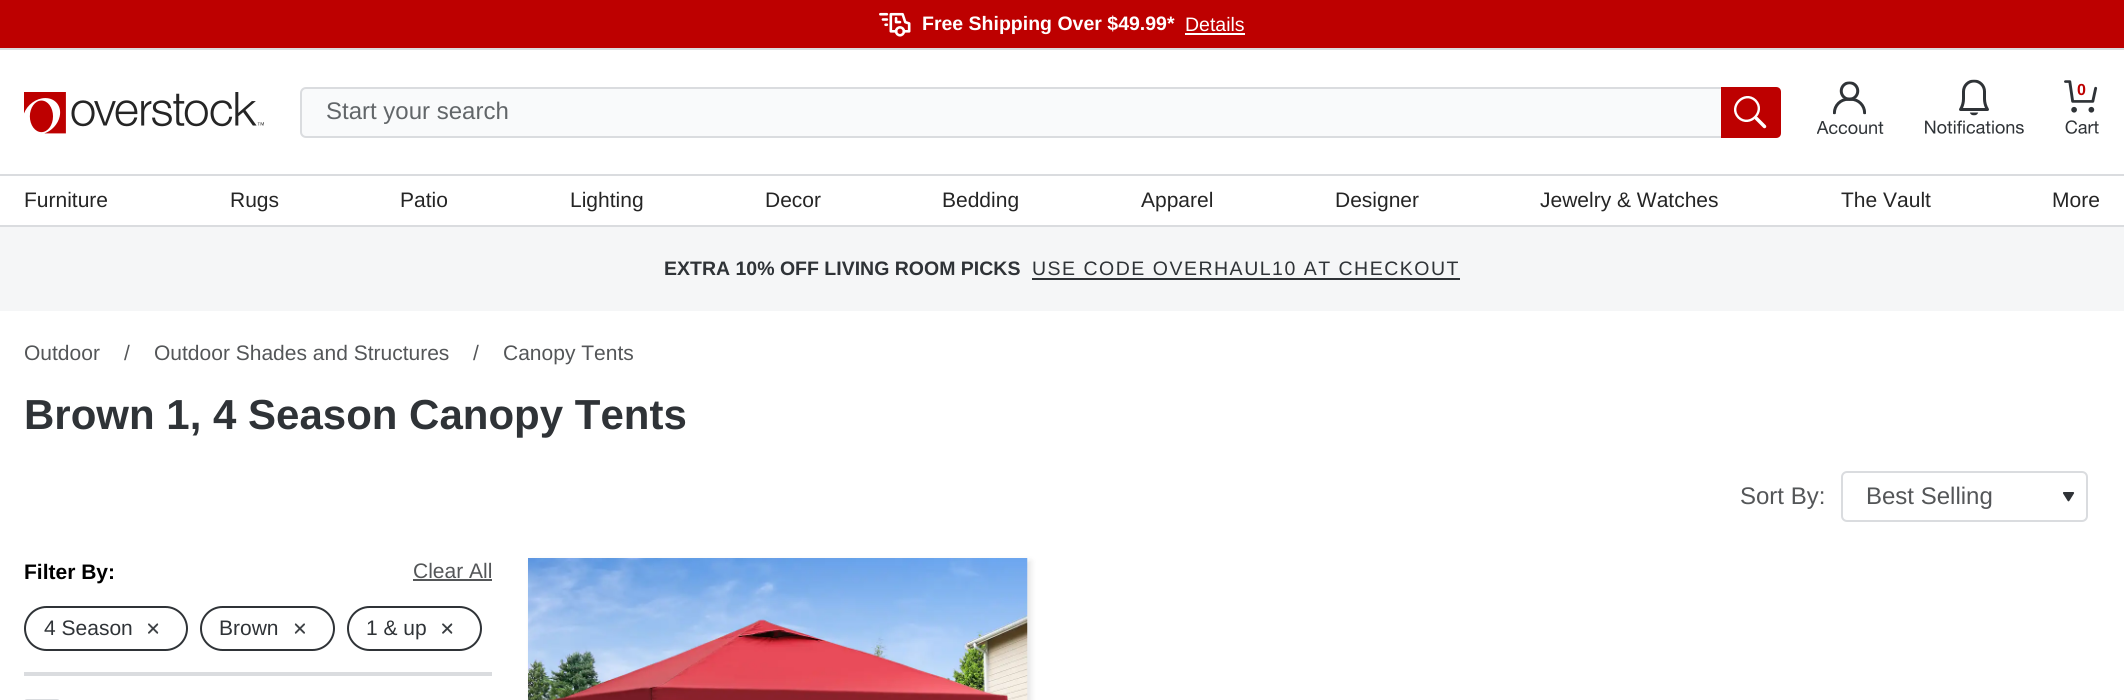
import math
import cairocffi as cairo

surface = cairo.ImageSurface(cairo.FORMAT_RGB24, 2124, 700)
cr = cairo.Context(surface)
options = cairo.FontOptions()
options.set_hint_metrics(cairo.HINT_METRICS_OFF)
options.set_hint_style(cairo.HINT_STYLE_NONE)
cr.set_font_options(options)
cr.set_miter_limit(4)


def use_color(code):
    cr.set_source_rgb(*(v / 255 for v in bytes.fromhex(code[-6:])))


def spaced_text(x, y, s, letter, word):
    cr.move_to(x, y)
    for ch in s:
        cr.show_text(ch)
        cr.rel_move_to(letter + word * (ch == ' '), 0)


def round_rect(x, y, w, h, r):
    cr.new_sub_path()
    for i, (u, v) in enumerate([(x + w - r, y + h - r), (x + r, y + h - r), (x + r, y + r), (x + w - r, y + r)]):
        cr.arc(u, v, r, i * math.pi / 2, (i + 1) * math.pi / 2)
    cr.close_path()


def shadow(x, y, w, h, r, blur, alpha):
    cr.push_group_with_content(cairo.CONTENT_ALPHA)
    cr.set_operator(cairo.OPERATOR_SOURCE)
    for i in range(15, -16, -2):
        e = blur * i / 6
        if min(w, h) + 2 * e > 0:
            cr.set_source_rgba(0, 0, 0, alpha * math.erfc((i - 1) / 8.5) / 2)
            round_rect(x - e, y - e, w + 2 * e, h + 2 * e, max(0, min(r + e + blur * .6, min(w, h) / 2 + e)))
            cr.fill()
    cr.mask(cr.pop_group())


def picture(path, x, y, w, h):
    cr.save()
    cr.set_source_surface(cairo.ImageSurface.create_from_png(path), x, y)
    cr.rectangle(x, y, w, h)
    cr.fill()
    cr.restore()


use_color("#ffffff")
cr.paint()
use_color("#bd0000")
cr.rectangle(0, 0, 2124, 48)
cr.fill()
picture("img1.png", 879, 12, 32, 25)
cr.select_font_face("Liberation Sans", cairo.FONT_SLANT_NORMAL, cairo.FONT_WEIGHT_BOLD)
cr.set_font_size(19.5)
use_color("#ffffff")
cr.move_to(922, 30)
cr.show_text("Free Shipping Over $49.99*")
cr.select_font_face("Liberation Sans")
cr.move_to(1185, 31)
cr.show_text("Details")
cr.rectangle(1185, 33, 60, 2)
cr.fill()
use_color("#dadcdf")
cr.rectangle(0, 48, 2124, 2)
cr.fill()
cr.rectangle(0, 174, 2124, 2)
cr.fill()
picture("img2.png", 1817, 81, 67, 54)
picture("img3.png", 1925, 79, 99, 55)
picture("img4.png", 2064, 80, 35, 54)
cr.select_font_face("Liberation Sans", cairo.FONT_SLANT_NORMAL, cairo.FONT_WEIGHT_BOLD)
cr.set_font_size(16)
use_color("#bd0000")
cr.move_to(2077, 95)
cr.show_text("0")
picture("img5.png", 24, 92, 240, 42)
use_color("#f9fafb")
round_rect(301, 88, 1479, 49, 5)
cr.fill_preserve()
use_color("#dadcdf")
cr.stroke()
cr.select_font_face("Liberation Sans")
cr.set_font_size(24)
use_color("#626669")
cr.move_to(326, 119)
cr.show_text("Start your search")
use_color("#bd0000")
cr.new_path()
cr.move_to(1721, 87)
cr.line_to(1776, 87)
cr.curve_to(1779, 87, 1781, 89, 1781, 92)
cr.line_to(1781, 133)
cr.curve_to(1781, 136, 1779, 138, 1776, 138)
cr.line_to(1721, 138)
cr.close_path()
cr.fill()
cr.new_path()
cr.move_to(1764.5, 126.5)
cr.line_to(1756.5, 118.5)
use_color("#ffffff")
cr.set_line_width(3.5)
cr.set_line_cap(cairo.LINE_CAP_ROUND)
cr.stroke()
cr.new_path()
cr.move_to(1755.5, 100.5)
cr.curve_to(1766, 111.5, 1749.5, 128, 1738.5, 117.5)
cr.curve_to(1728, 106.5, 1744.5, 90, 1755.5, 100.5)
cr.close_path()
cr.set_line_width(2.4)
cr.set_line_cap(cairo.LINE_CAP_BUTT)
cr.stroke()
use_color("#dadcdf")
cr.rectangle(0, 225, 2124, 2)
cr.fill()
cr.set_font_size(21)
use_color("#252525")
cr.move_to(24, 207)
cr.show_text("Furniture")
cr.move_to(230, 207)
cr.show_text("Rugs")
cr.move_to(400, 207)
cr.show_text("Patio")
cr.move_to(570, 207)
cr.show_text("Lighting")
cr.move_to(765, 207)
cr.show_text("Decor")
cr.move_to(942, 207)
cr.show_text("Bedding")
cr.move_to(1141, 207)
cr.show_text("Apparel")
cr.move_to(1335, 207)
cr.show_text("Designer")
cr.move_to(1540, 207)
cr.show_text("Jewelry & Watches")
cr.move_to(1841, 207)
cr.show_text("The Vault")
cr.move_to(2052, 207)
cr.show_text("More")
use_color("#f5f6f7")
cr.rectangle(0, 227, 2124, 84)
cr.fill()
cr.select_font_face("Liberation Sans", cairo.FONT_SLANT_NORMAL, cairo.FONT_WEIGHT_BOLD)
cr.set_font_size(19.5)
use_color("#2f3337")
cr.move_to(664, 275)
cr.show_text("EXTRA 10% OFF LIVING ROOM PICKS")
cr.select_font_face("Liberation Sans")
spaced_text(1032, 275, "USE CODE OVERHAUL10 AT CHECKOUT", 1.5, 0)
cr.rectangle(1032, 278, 428, 2)
cr.fill()
cr.set_font_size(21)
use_color("#545658")
cr.move_to(24, 360)
cr.show_text("Outdoor")
cr.move_to(124, 360)
cr.show_text("/")
cr.move_to(154, 360)
cr.show_text("Outdoor Shades and Structures")
cr.move_to(473, 360)
cr.show_text("/")
cr.move_to(503, 360)
cr.show_text("Canopy Tents")
cr.select_font_face("Liberation Sans", cairo.FONT_SLANT_NORMAL, cairo.FONT_WEIGHT_BOLD)
cr.set_font_size(42)
use_color("#2f3337")
cr.move_to(24, 429)
cr.show_text("Brown 1, 4 Season Canopy Tents")
cr.select_font_face("Liberation Sans")
cr.set_font_size(24)
use_color("#545658")
cr.move_to(1740, 504)
cr.show_text("Sort By:")
picture("img6.png", 2063, 492, 12, 10)
round_rect(1842, 472, 245, 49, 5)
use_color("#dadcdf")
cr.set_line_width(2)
cr.stroke()
use_color("#545658")
cr.move_to(1866, 504)
cr.show_text("Best Selling")
cr.select_font_face("Liberation Sans", cairo.FONT_SLANT_NORMAL, cairo.FONT_WEIGHT_BOLD)
cr.set_font_size(21)
use_color("#000000")
cr.move_to(24, 579)
cr.show_text("Filter By:")
cr.select_font_face("Liberation Sans")
use_color("#545658")
cr.move_to(413, 578)
cr.show_text("Clear All")
cr.rectangle(413, 579, 79, 2)
cr.fill()
round_rect(25, 607, 162, 43, 21.5)
use_color("#2f3337")
cr.stroke()
cr.move_to(44, 635)
cr.show_text("4 Season")
picture("img7.png", 148, 623, 11, 11)
round_rect(201, 607, 133, 43, 21.5)
cr.stroke()
cr.move_to(219, 635)
cr.show_text("Brown")
picture("img8.png", 294, 623, 11, 11)
round_rect(348, 607, 133, 43, 21.5)
cr.stroke()
cr.move_to(366, 635)
cr.show_text("1 & up")
picture("img9.png", 442, 623, 11, 11)
use_color("#dadcdf")
cr.rectangle(24, 672, 468, 4)
cr.fill()
round_rect(25.5, 700.5, 33, 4, 1.5)
cr.set_line_width(3)
cr.stroke()
use_color("#000000")
shadow(531, 561, 500, 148, 0, 3, 0.1)
picture("img10.png", 528, 558, 500, 142)
surface.write_to_png("result.png")
